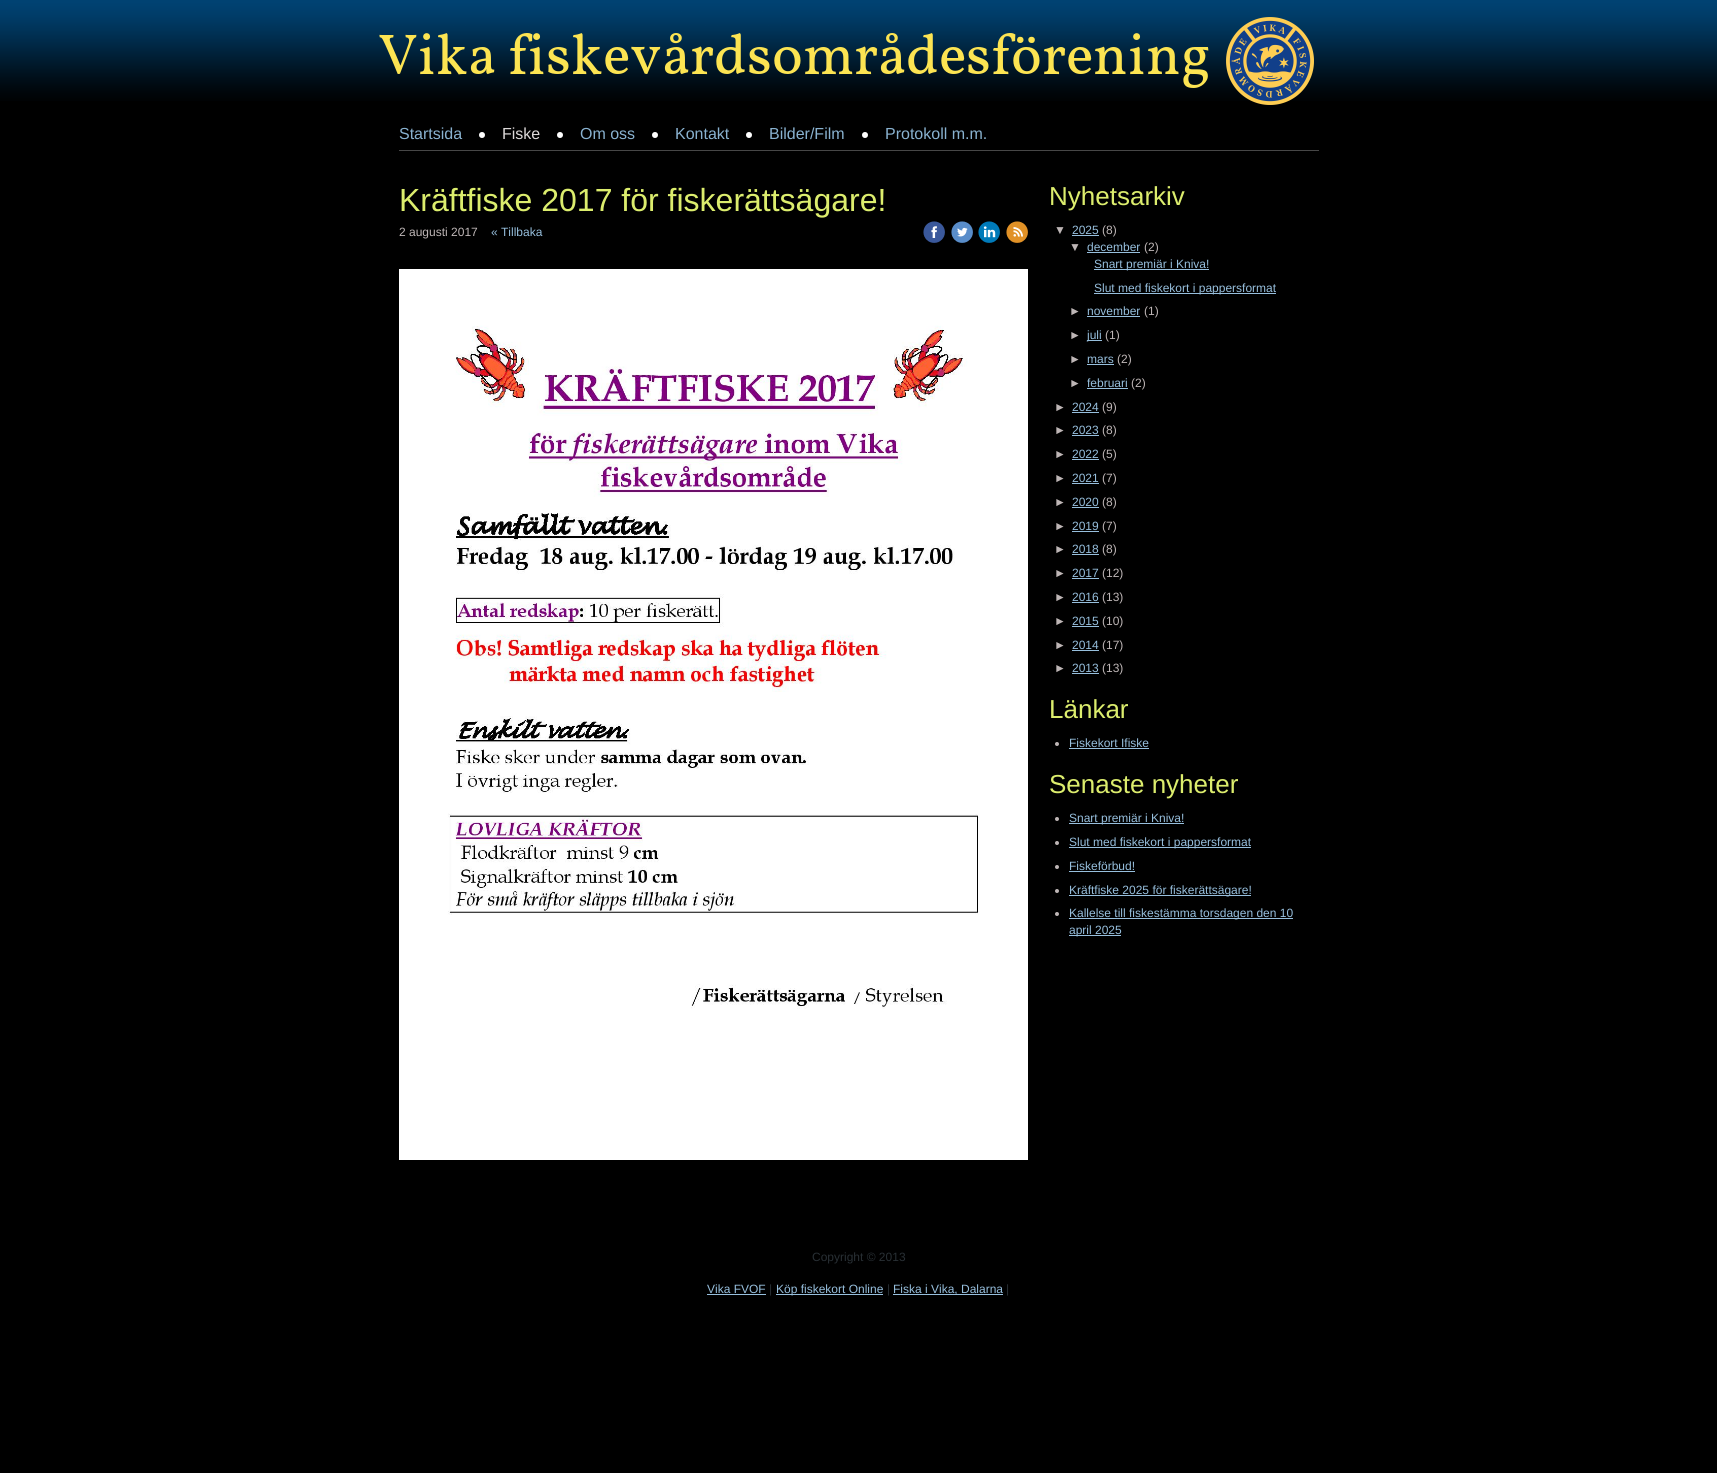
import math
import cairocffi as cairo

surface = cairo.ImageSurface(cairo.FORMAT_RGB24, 1717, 1473)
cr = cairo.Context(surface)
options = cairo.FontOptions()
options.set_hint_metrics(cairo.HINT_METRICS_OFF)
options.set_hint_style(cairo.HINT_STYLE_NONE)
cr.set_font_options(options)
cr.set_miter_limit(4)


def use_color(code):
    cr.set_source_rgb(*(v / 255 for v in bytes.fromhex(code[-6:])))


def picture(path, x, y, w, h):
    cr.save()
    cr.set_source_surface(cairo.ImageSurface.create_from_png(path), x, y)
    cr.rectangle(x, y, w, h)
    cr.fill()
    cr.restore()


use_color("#000000")
cr.paint()
picture("img1.png", 0, 0, 1717, 101)
picture("img2.png", 1226, 17, 88, 88)
picture("img3.png", 379, 33, 830, 55)
use_color("#474747")
cr.rectangle(399, 150, 920, 1)
cr.fill()
cr.select_font_face("Liberation Sans")
cr.set_font_size(16)
use_color("#89b2d0")
cr.move_to(399, 139)
cr.show_text("Startsida")
use_color("#ffffff")
cr.new_path()
cr.arc(482, 135, 3, 0, 2 * math.pi)
cr.fill()
use_color("#ddd9d9")
cr.move_to(502, 139)
cr.show_text("Fiske")
use_color("#ffffff")
cr.new_path()
cr.arc(560, 135, 3, 0, 2 * math.pi)
cr.fill()
use_color("#89b2d0")
cr.move_to(580, 139)
cr.show_text("Om oss")
use_color("#ffffff")
cr.new_path()
cr.arc(655, 135, 3, 0, 2 * math.pi)
cr.fill()
use_color("#89b2d0")
cr.move_to(675, 139)
cr.show_text("Kontakt")
use_color("#ffffff")
cr.new_path()
cr.arc(749, 135, 3, 0, 2 * math.pi)
cr.fill()
use_color("#89b2d0")
cr.move_to(769, 139)
cr.show_text("Bilder/Film")
use_color("#ffffff")
cr.new_path()
cr.arc(865, 135, 3, 0, 2 * math.pi)
cr.fill()
use_color("#89b2d0")
cr.move_to(885, 139)
cr.show_text("Protokoll m.m.")
cr.set_font_size(32)
use_color("#dced6d")
cr.move_to(399, 211)
cr.show_text("Kräftfiske 2017 för fiskerättsägare!")
cr.set_font_size(12)
use_color("#beb6b6")
cr.move_to(399, 236)
cr.show_text("2 augusti 2017")
use_color("#97bfdd")
cr.move_to(491, 236)
cr.show_text("« Tillbaka")
picture("img4.png", 923, 221, 22, 22)
picture("img5.png", 951, 221, 22, 22)
picture("img6.png", 978, 221, 22, 22)
picture("img7.png", 1006, 221, 22, 22)
picture("img8.png", 399, 269, 629, 891)
cr.set_font_size(26)
use_color("#dced6d")
cr.move_to(1049, 205)
cr.show_text("Nyhetsarkiv")
cr.set_font_size(12)
use_color("#beb6b6")
cr.move_to(1054, 234)
cr.show_text("▼")
use_color("#97bfdd")
cr.move_to(1072, 234)
cr.show_text("2025")
cr.rectangle(1072, 235, 27, 1)
cr.fill()
use_color("#beb6b6")
cr.move_to(1102, 234)
cr.show_text("(8)")
cr.move_to(1069, 251)
cr.show_text("▼")
use_color("#97bfdd")
cr.move_to(1087, 251)
cr.show_text("december")
cr.rectangle(1087, 252, 53, 1)
cr.fill()
use_color("#beb6b6")
cr.move_to(1144, 251)
cr.show_text("(2)")
use_color("#97bfdd")
cr.rectangle(1094, 269, 115, 1)
cr.fill()
cr.move_to(1094, 268)
cr.show_text("Snart premiär i Kniva!")
cr.rectangle(1094, 293, 182, 1)
cr.fill()
cr.move_to(1094, 292)
cr.show_text("Slut med fiskekort i pappersformat")
use_color("#beb6b6")
cr.move_to(1069, 315)
cr.show_text("►")
use_color("#97bfdd")
cr.move_to(1087, 315)
cr.show_text("november")
cr.rectangle(1087, 316, 53, 1)
cr.fill()
use_color("#beb6b6")
cr.move_to(1144, 315)
cr.show_text("(1)")
cr.move_to(1069, 339)
cr.show_text("►")
use_color("#97bfdd")
cr.rectangle(1087, 340, 15, 1)
cr.fill()
cr.move_to(1087, 339)
cr.show_text("juli")
use_color("#beb6b6")
cr.move_to(1105, 339)
cr.show_text("(1)")
cr.move_to(1069, 363)
cr.show_text("►")
use_color("#97bfdd")
cr.move_to(1087, 363)
cr.show_text("mars")
cr.rectangle(1087, 364, 27, 1)
cr.fill()
use_color("#beb6b6")
cr.move_to(1117, 363)
cr.show_text("(2)")
cr.move_to(1069, 387)
cr.show_text("►")
use_color("#97bfdd")
cr.move_to(1087, 387)
cr.show_text("februari")
cr.rectangle(1087, 388, 41, 1)
cr.fill()
use_color("#beb6b6")
cr.move_to(1131, 387)
cr.show_text("(2)")
cr.move_to(1054, 411)
cr.show_text("►")
use_color("#97bfdd")
cr.move_to(1072, 411)
cr.show_text("2024")
cr.rectangle(1072, 412, 27, 1)
cr.fill()
use_color("#beb6b6")
cr.move_to(1102, 411)
cr.show_text("(9)")
cr.move_to(1054, 434)
cr.show_text("►")
use_color("#97bfdd")
cr.move_to(1072, 434)
cr.show_text("2023")
cr.rectangle(1072, 435, 27, 1)
cr.fill()
use_color("#beb6b6")
cr.move_to(1102, 434)
cr.show_text("(8)")
cr.move_to(1054, 458)
cr.show_text("►")
use_color("#97bfdd")
cr.move_to(1072, 458)
cr.show_text("2022")
cr.rectangle(1072, 459, 27, 1)
cr.fill()
use_color("#beb6b6")
cr.move_to(1102, 458)
cr.show_text("(5)")
cr.move_to(1054, 482)
cr.show_text("►")
use_color("#97bfdd")
cr.move_to(1072, 482)
cr.show_text("2021")
cr.rectangle(1072, 483, 27, 1)
cr.fill()
use_color("#beb6b6")
cr.move_to(1102, 482)
cr.show_text("(7)")
cr.move_to(1054, 506)
cr.show_text("►")
use_color("#97bfdd")
cr.move_to(1072, 506)
cr.show_text("2020")
cr.rectangle(1072, 507, 27, 1)
cr.fill()
use_color("#beb6b6")
cr.move_to(1102, 506)
cr.show_text("(8)")
cr.move_to(1054, 530)
cr.show_text("►")
use_color("#97bfdd")
cr.move_to(1072, 530)
cr.show_text("2019")
cr.rectangle(1072, 531, 27, 1)
cr.fill()
use_color("#beb6b6")
cr.move_to(1102, 530)
cr.show_text("(7)")
cr.move_to(1054, 553)
cr.show_text("►")
use_color("#97bfdd")
cr.move_to(1072, 553)
cr.show_text("2018")
cr.rectangle(1072, 554, 27, 1)
cr.fill()
use_color("#beb6b6")
cr.move_to(1102, 553)
cr.show_text("(8)")
cr.move_to(1054, 577)
cr.show_text("►")
use_color("#97bfdd")
cr.move_to(1072, 577)
cr.show_text("2017")
cr.rectangle(1072, 578, 27, 1)
cr.fill()
use_color("#beb6b6")
cr.move_to(1102, 577)
cr.show_text("(12)")
cr.move_to(1054, 601)
cr.show_text("►")
use_color("#97bfdd")
cr.move_to(1072, 601)
cr.show_text("2016")
cr.rectangle(1072, 602, 27, 1)
cr.fill()
use_color("#beb6b6")
cr.move_to(1102, 601)
cr.show_text("(13)")
cr.move_to(1054, 625)
cr.show_text("►")
use_color("#97bfdd")
cr.move_to(1072, 625)
cr.show_text("2015")
cr.rectangle(1072, 626, 27, 1)
cr.fill()
use_color("#beb6b6")
cr.move_to(1102, 625)
cr.show_text("(10)")
cr.move_to(1054, 649)
cr.show_text("►")
use_color("#97bfdd")
cr.move_to(1072, 649)
cr.show_text("2014")
cr.rectangle(1072, 650, 27, 1)
cr.fill()
use_color("#beb6b6")
cr.move_to(1102, 649)
cr.show_text("(17)")
cr.move_to(1054, 672)
cr.show_text("►")
use_color("#97bfdd")
cr.move_to(1072, 672)
cr.show_text("2013")
cr.rectangle(1072, 673, 27, 1)
cr.fill()
use_color("#beb6b6")
cr.move_to(1102, 672)
cr.show_text("(13)")
cr.set_font_size(26)
use_color("#dced6d")
cr.move_to(1049, 718)
cr.show_text("Länkar")
use_color("#beb6b6")
cr.new_path()
cr.arc(1057, 744, 2, 0, 2 * math.pi)
cr.fill()
cr.set_font_size(12)
use_color("#97bfdd")
cr.move_to(1069, 747)
cr.show_text("Fiskekort Ifiske")
cr.rectangle(1069, 748, 80, 1)
cr.fill()
cr.set_font_size(26)
use_color("#dced6d")
cr.move_to(1049, 793)
cr.show_text("Senaste nyheter")
use_color("#beb6b6")
cr.new_path()
cr.arc(1057, 819, 2, 0, 2 * math.pi)
cr.fill()
use_color("#97bfdd")
cr.rectangle(1069, 823, 115, 1)
cr.fill()
cr.set_font_size(12)
cr.move_to(1069, 822)
cr.show_text("Snart premiär i Kniva!")
use_color("#beb6b6")
cr.new_path()
cr.arc(1057, 843, 2, 0, 2 * math.pi)
cr.fill()
use_color("#97bfdd")
cr.rectangle(1069, 847, 182, 1)
cr.fill()
cr.move_to(1069, 846)
cr.show_text("Slut med fiskekort i pappersformat")
use_color("#beb6b6")
cr.new_path()
cr.arc(1057, 867, 2, 0, 2 * math.pi)
cr.fill()
use_color("#97bfdd")
cr.move_to(1069, 870)
cr.show_text("Fiskeförbud!")
cr.rectangle(1069, 871, 66, 1)
cr.fill()
use_color("#beb6b6")
cr.arc(1057, 891, 2, 0, 2 * math.pi)
cr.fill()
use_color("#97bfdd")
cr.rectangle(1069, 895, 182, 1)
cr.fill()
cr.move_to(1069, 894)
cr.show_text("Kräftfiske 2025 för fiskerättsägare!")
use_color("#beb6b6")
cr.new_path()
cr.arc(1057, 914, 2, 0, 2 * math.pi)
cr.fill()
use_color("#97bfdd")
cr.rectangle(1069, 918, 224, 1)
cr.fill()
cr.move_to(1069, 917)
cr.show_text("Kallelse till fiskestämma torsdagen den 10")
cr.rectangle(1069, 935, 52, 1)
cr.fill()
cr.move_to(1069, 934)
cr.show_text("april 2025")
use_color("#282f34")
cr.move_to(812, 1261)
cr.show_text("Copyright © 2013")
use_color("#97bfdd")
cr.move_to(707, 1293)
cr.show_text("Vika FVOF")
cr.rectangle(707, 1294, 59, 1)
cr.fill()
use_color("#282f34")
cr.move_to(769, 1293)
cr.show_text("|")
use_color("#97bfdd")
cr.rectangle(776, 1294, 107, 1)
cr.fill()
cr.move_to(776, 1293)
cr.show_text("Köp fiskekort Online")
use_color("#282f34")
cr.move_to(887, 1293)
cr.show_text("|")
use_color("#97bfdd")
cr.rectangle(893, 1294, 110, 1)
cr.fill()
cr.move_to(893, 1293)
cr.show_text("Fiska i Vika, Dalarna")
use_color("#282f34")
cr.move_to(1006, 1293)
cr.show_text("|")
surface.write_to_png("result.png")
